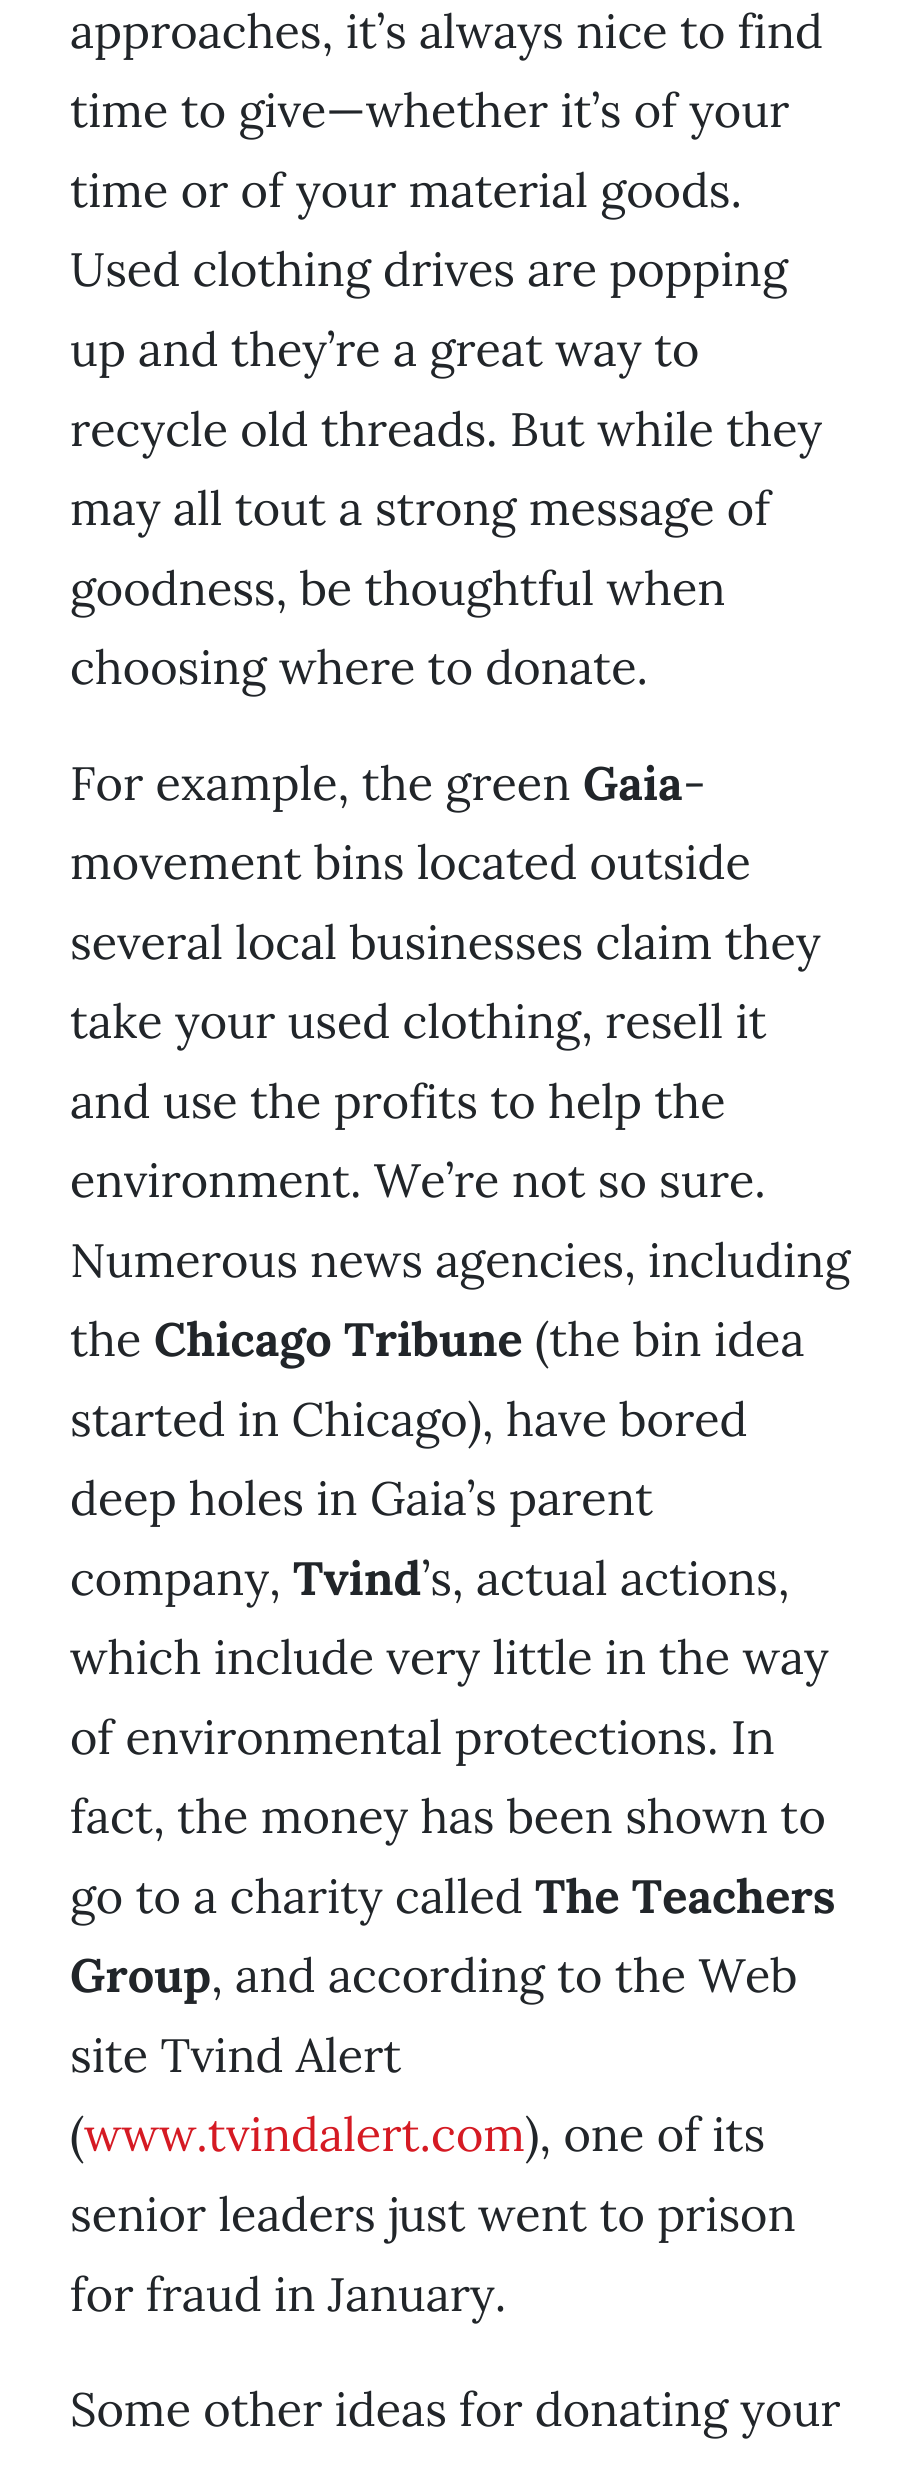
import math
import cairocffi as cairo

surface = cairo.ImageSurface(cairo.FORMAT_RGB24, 921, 2470)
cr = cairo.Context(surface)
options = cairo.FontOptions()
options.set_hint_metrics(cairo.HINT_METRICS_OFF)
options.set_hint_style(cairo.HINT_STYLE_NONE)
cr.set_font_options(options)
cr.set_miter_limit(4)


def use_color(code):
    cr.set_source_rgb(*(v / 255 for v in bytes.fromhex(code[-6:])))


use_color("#ffffff")
cr.paint()
cr.select_font_face("Lora")
cr.set_font_size(46.75)
use_color("#212529")
cr.move_to(70, 48)
cr.show_text("approaches, it’s always nice to find")
cr.move_to(70, 127)
cr.show_text("time to give—whether it’s of your")
cr.move_to(70, 207)
cr.show_text("time or of your material goods.")
cr.move_to(70, 286)
cr.show_text("Used clothing drives are popping")
cr.move_to(70, 366)
cr.show_text("up and they’re a great way to")
cr.move_to(70, 446)
cr.show_text("recycle old threads. But while they")
cr.move_to(70, 525)
cr.show_text("may all tout a strong message of")
cr.move_to(70, 605)
cr.show_text("goodness, be thoughtful when")
cr.move_to(70, 684)
cr.show_text("choosing where to donate.")
cr.move_to(70, 800)
cr.show_text("For example, the green")
cr.select_font_face("Lora", cairo.FONT_SLANT_NORMAL, cairo.FONT_WEIGHT_BOLD)
cr.move_to(583, 800)
cr.show_text("Gaia")
cr.select_font_face("Lora")
cr.move_to(683, 800)
cr.show_text("-")
cr.move_to(70, 879)
cr.show_text("movement bins located outside")
cr.move_to(70, 959)
cr.show_text("several local businesses claim they")
cr.move_to(70, 1038)
cr.show_text("take your used clothing, resell it")
cr.move_to(70, 1118)
cr.show_text("and use the profits to help the")
cr.move_to(70, 1197)
cr.show_text("environment. We’re not so sure.")
cr.move_to(70, 1277)
cr.show_text("Numerous news agencies, including")
cr.move_to(70, 1356)
cr.show_text("the")
cr.select_font_face("Lora", cairo.FONT_SLANT_NORMAL, cairo.FONT_WEIGHT_BOLD)
cr.move_to(154, 1356)
cr.show_text("Chicago Tribune")
cr.select_font_face("Lora")
cr.move_to(535, 1356)
cr.show_text("(the bin idea")
cr.move_to(70, 1436)
cr.show_text("started in Chicago), have bored")
cr.move_to(70, 1515)
cr.show_text("deep holes in Gaia’s parent")
cr.move_to(70, 1595)
cr.show_text("company,")
cr.select_font_face("Lora", cairo.FONT_SLANT_NORMAL, cairo.FONT_WEIGHT_BOLD)
cr.move_to(293, 1595)
cr.show_text("Tvind")
cr.select_font_face("Lora")
cr.move_to(422, 1595)
cr.show_text("’s, actual actions,")
cr.move_to(70, 1674)
cr.show_text("which include very little in the way")
cr.move_to(70, 1754)
cr.show_text("of environmental protections. In")
cr.move_to(70, 1833)
cr.show_text("fact, the money has been shown to")
cr.move_to(70, 1913)
cr.show_text("go to a charity called")
cr.select_font_face("Lora", cairo.FONT_SLANT_NORMAL, cairo.FONT_WEIGHT_BOLD)
cr.move_to(535, 1913)
cr.show_text("The Teachers")
cr.move_to(70, 1992)
cr.show_text("Group")
cr.select_font_face("Lora")
cr.move_to(211, 1992)
cr.show_text(", and according to the Web")
cr.move_to(70, 2072)
cr.show_text("site Tvind Alert")
cr.move_to(70, 2151)
cr.show_text("(")
use_color("#d51a23")
cr.move_to(84, 2151)
cr.show_text("www.tvindalert.com")
use_color("#212529")
cr.move_to(525, 2151)
cr.show_text("), one of its")
cr.move_to(70, 2231)
cr.show_text("senior leaders just went to prison")
cr.move_to(70, 2311)
cr.show_text("for fraud in January.")
cr.move_to(70, 2426)
cr.show_text("Some other ideas for donating your")
surface.write_to_png("result.png")
